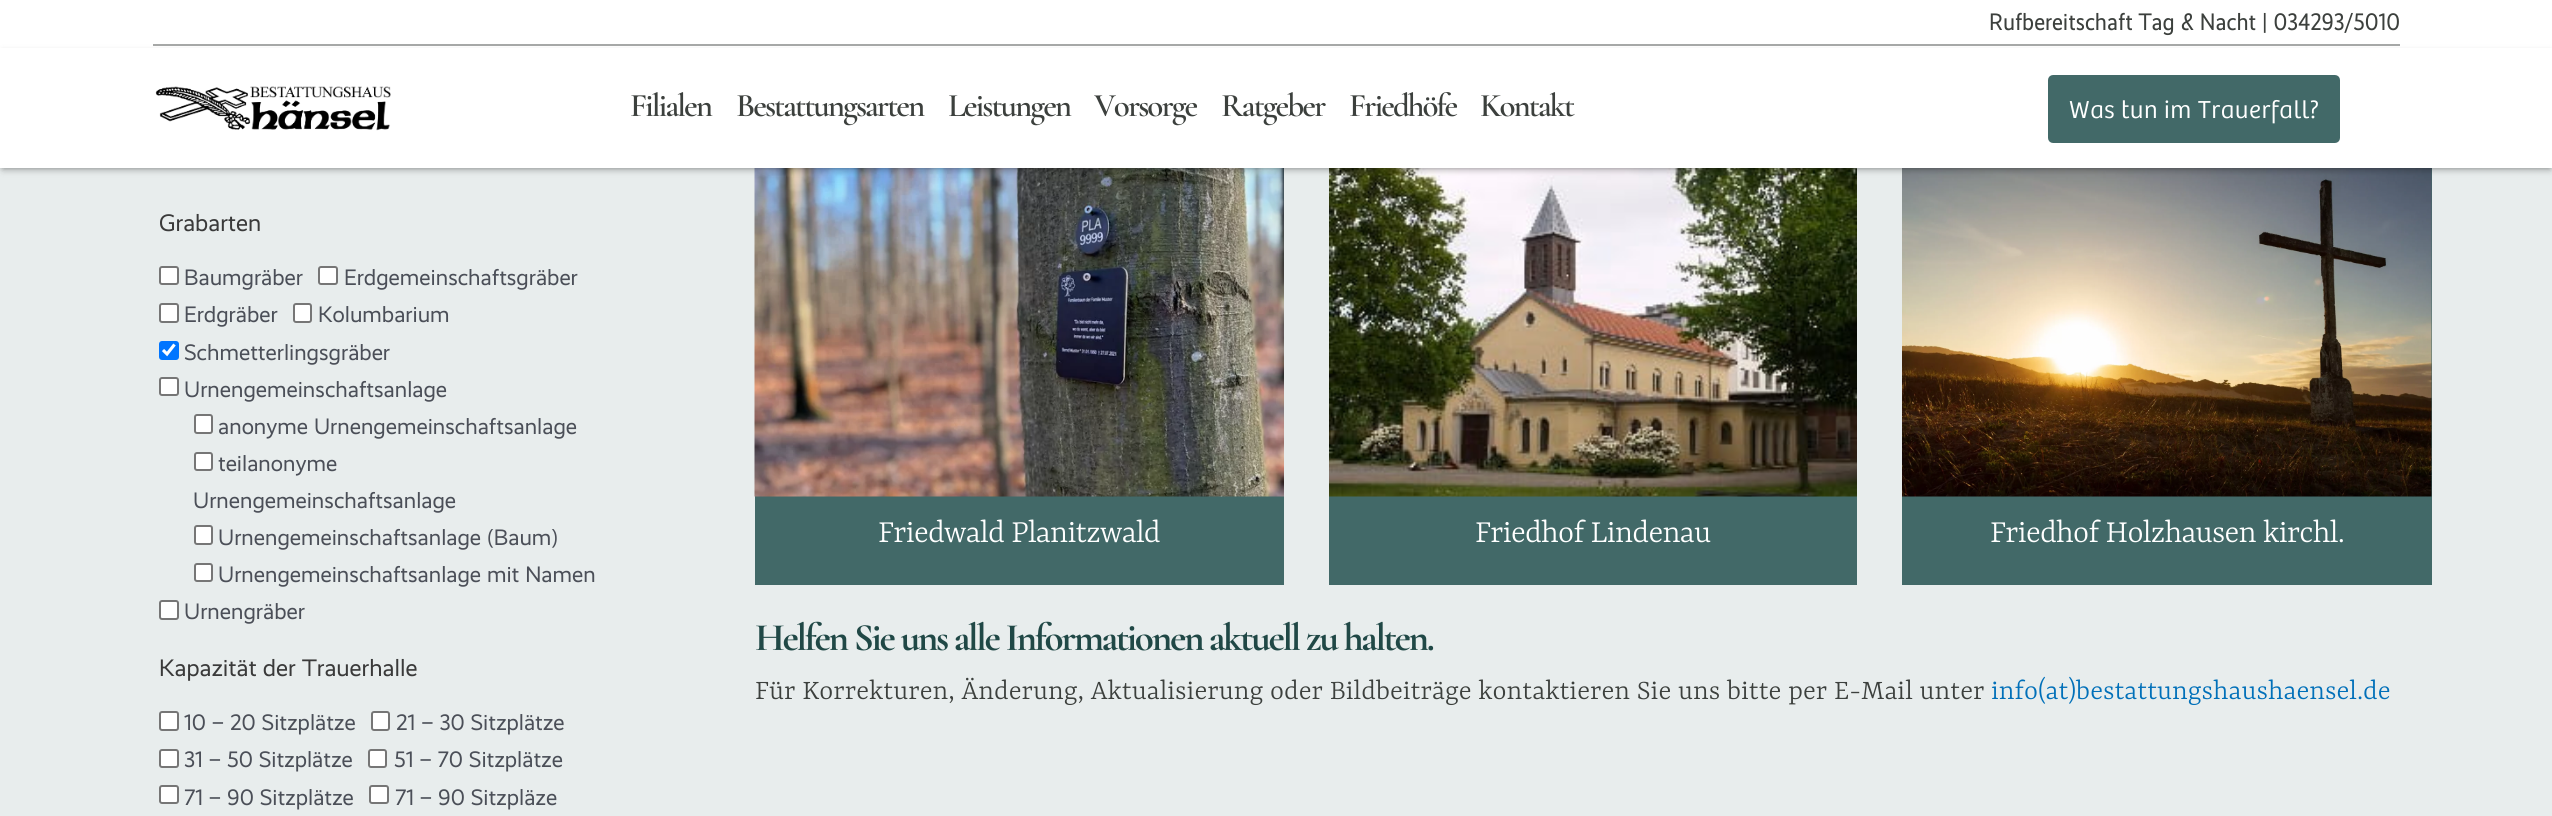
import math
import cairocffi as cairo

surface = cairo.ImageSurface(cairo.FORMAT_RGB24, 2552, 816)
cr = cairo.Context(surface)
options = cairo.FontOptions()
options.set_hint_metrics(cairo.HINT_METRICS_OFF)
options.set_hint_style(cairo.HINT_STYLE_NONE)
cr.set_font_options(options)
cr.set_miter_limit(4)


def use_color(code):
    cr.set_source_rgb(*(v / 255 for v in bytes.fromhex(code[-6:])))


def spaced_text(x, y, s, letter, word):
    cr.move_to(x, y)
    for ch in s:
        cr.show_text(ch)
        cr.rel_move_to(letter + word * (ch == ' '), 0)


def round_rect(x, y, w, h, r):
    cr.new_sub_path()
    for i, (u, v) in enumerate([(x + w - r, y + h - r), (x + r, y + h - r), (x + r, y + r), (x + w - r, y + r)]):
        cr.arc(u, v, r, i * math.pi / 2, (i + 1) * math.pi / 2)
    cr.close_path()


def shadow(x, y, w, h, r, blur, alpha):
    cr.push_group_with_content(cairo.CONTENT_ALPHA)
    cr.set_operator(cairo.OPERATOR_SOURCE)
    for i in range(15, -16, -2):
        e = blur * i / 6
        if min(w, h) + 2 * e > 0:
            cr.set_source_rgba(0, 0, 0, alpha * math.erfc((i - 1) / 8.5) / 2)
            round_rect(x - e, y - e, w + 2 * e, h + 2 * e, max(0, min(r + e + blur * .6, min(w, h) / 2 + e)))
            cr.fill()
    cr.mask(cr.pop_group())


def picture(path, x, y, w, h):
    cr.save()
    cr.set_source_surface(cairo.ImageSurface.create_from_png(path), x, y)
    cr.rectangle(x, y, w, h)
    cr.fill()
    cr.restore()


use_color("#e8eded")
cr.paint()
use_color("#ffffff")
cr.rectangle(0, 0, 2552, 48)
cr.fill()
cr.select_font_face("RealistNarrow")
cr.set_font_size(24)
use_color("#3c403d")
cr.move_to(1989, 30)
cr.show_text("Rufbereitschaft Tag & Nacht | 034293/5010")
use_color("#a7a9a8")
cr.rectangle(153, 44, 2247, 2)
cr.fill()
use_color("#426968")
cr.rectangle(755, 496, 529, 89)
cr.fill()
picture("img2.png", 754, 168, 530, 329)
cr.rectangle(1329, 496, 528, 89)
cr.fill()
picture("img3.png", 1329, 168, 528, 329)
cr.rectangle(1902, 168, 530, 417)
cr.fill()
picture("img4.png", 1902, 168, 530, 329)
use_color("#000000")
shadow(3, 54, 2547, 114, 0, 4, 0.5)
use_color("#ffffff")
cr.rectangle(0, 48, 2552, 120)
cr.fill()
picture("img1.png", 155, 86, 236, 45)
cr.select_font_face("Cormorant Garamond SemiBold")
cr.set_font_size(33)
use_color("#3c403d")
spaced_text(630, 116, "Filialen", -2, 0)
spaced_text(736, 116, "Bestattungsarten", -2, 0)
spaced_text(948, 116, "Leistungen", -2, 0)
spaced_text(1094, 116, "Vorsorge", -2, 0)
spaced_text(1221, 116, "Ratgeber", -2, 0)
spaced_text(1349, 116, "Friedhöfe", -2, 0)
spaced_text(1480, 116, "Kontakt", -2, 0)
use_color("#426968")
round_rect(2049.5, 76.5, 289, 65, 3.5)
cr.fill_preserve()
cr.set_line_width(3)
cr.stroke()
cr.select_font_face("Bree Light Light")
cr.set_font_size(25.5)
use_color("#ffffff")
spaced_text(2069, 118, "Was tun im Trauerfall?", 0.45, 0)
cr.select_font_face("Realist")
cr.set_font_size(24)
use_color("#3a3a3a")
cr.move_to(159, 231)
cr.show_text("Grabarten")
use_color("#ffffff")
round_rect(160, 267, 18, 17, 2)
cr.fill_preserve()
use_color("#767676")
cr.set_line_width(2)
cr.stroke()
cr.set_font_size(22.5)
use_color("#4b4f58")
cr.move_to(184, 285)
cr.show_text("Baumgräber")
use_color("#ffffff")
round_rect(319, 267, 18, 17, 2)
cr.fill_preserve()
use_color("#767676")
cr.stroke()
use_color("#4b4f58")
cr.move_to(344, 285)
cr.show_text("Erdgemeinschaftsgräber")
use_color("#ffffff")
round_rect(160, 304, 18, 18, 2)
cr.fill_preserve()
use_color("#767676")
cr.stroke()
use_color("#4b4f58")
cr.move_to(184, 322)
cr.show_text("Erdgräber")
use_color("#ffffff")
round_rect(294, 304, 17, 18, 2)
cr.fill_preserve()
use_color("#767676")
cr.stroke()
use_color("#4b4f58")
cr.move_to(318, 322)
cr.show_text("Kolumbarium")
use_color("#0075ff")
round_rect(159, 341, 20, 19, 3)
cr.fill()
cr.new_path()
cr.move_to(163, 350)
cr.line_to(167, 354)
cr.line_to(174.5, 344.5)
use_color("#ffffff")
cr.set_line_width(3.1)
cr.stroke()
use_color("#4b4f58")
cr.move_to(184, 360)
cr.show_text("Schmetterlingsgräber")
use_color("#ffffff")
round_rect(160, 378, 18, 17, 2)
cr.fill_preserve()
use_color("#767676")
cr.set_line_width(2)
cr.stroke()
use_color("#4b4f58")
cr.move_to(184, 397)
cr.show_text("Urnengemeinschaftsanlage")
use_color("#ffffff")
round_rect(195, 415, 17, 18, 2)
cr.fill_preserve()
use_color("#767676")
cr.stroke()
use_color("#4b4f58")
cr.move_to(218, 434)
cr.show_text("anonyme Urnengemeinschaftsanlage")
use_color("#ffffff")
round_rect(195, 453, 17, 17, 2)
cr.fill_preserve()
use_color("#767676")
cr.stroke()
use_color("#4b4f58")
cr.move_to(218, 471)
cr.show_text("teilanonyme")
cr.move_to(193, 508)
cr.show_text("Urnengemeinschaftsanlage")
use_color("#ffffff")
round_rect(195, 526, 17, 18, 2)
cr.fill_preserve()
use_color("#767676")
cr.stroke()
use_color("#4b4f58")
cr.move_to(218, 545)
cr.show_text("Urnengemeinschaftsanlage (Baum)")
use_color("#ffffff")
round_rect(195, 564, 17, 17, 2)
cr.fill_preserve()
use_color("#767676")
cr.stroke()
use_color("#4b4f58")
cr.move_to(218, 582)
cr.show_text("Urnengemeinschaftsanlage mit Namen")
use_color("#ffffff")
round_rect(160, 601, 18, 18, 2)
cr.fill_preserve()
use_color("#767676")
cr.stroke()
use_color("#4b4f58")
cr.move_to(184, 619)
cr.show_text("Urnengräber")
cr.set_font_size(24)
use_color("#3a3a3a")
cr.move_to(159, 676)
cr.show_text("Kapazität der Trauerhalle")
use_color("#ffffff")
round_rect(160, 712, 18, 18, 2)
cr.fill_preserve()
use_color("#767676")
cr.stroke()
cr.set_font_size(22.5)
use_color("#4b4f58")
cr.move_to(184, 730)
cr.show_text("10 – 20 Sitzplätze")
use_color("#ffffff")
round_rect(372, 712, 17, 18, 2)
cr.fill_preserve()
use_color("#767676")
cr.stroke()
use_color("#4b4f58")
cr.move_to(396, 730)
cr.show_text("21 – 30 Sitzplätze")
use_color("#ffffff")
round_rect(160, 750, 18, 17, 2)
cr.fill_preserve()
use_color("#767676")
cr.stroke()
use_color("#4b4f58")
cr.move_to(184, 767)
cr.show_text("31 – 50 Sitzplätze")
use_color("#ffffff")
round_rect(369, 750, 17, 17, 2)
cr.fill_preserve()
use_color("#767676")
cr.stroke()
use_color("#4b4f58")
cr.move_to(394, 767)
cr.show_text("51 – 70 Sitzplätze")
use_color("#ffffff")
round_rect(160, 786, 18, 17, 2)
cr.fill_preserve()
use_color("#767676")
cr.stroke()
use_color("#4b4f58")
cr.move_to(184, 805)
cr.show_text("71 – 90 Sitzplätze")
use_color("#ffffff")
round_rect(370, 786, 18, 17, 2)
cr.fill_preserve()
use_color("#767676")
cr.stroke()
use_color("#4b4f58")
cr.move_to(395, 805)
cr.show_text("71 – 90 Sitzpläze")
cr.select_font_face("Yrsa Light")
cr.set_font_size(34.5)
use_color("#ffffff")
spaced_text(878, 542, "Friedwald Planitzwald", -0.75, 0)
spaced_text(1475, 542, "Friedhof Lindenau", -0.75, 0)
spaced_text(1990, 542, "Friedhof Holzhausen kirchl.", -0.75, 0)
cr.select_font_face("Cormorant Garamond", cairo.FONT_SLANT_NORMAL, cairo.FONT_WEIGHT_BOLD)
cr.set_font_size(39)
use_color("#204846")
spaced_text(755, 650, "Helfen Sie uns alle Informationen aktuell zu halten.", -2.25, 0)
cr.select_font_face("Yrsa Light")
cr.set_font_size(30)
use_color("#3c403d")
cr.move_to(755, 699)
cr.show_text("Für Korrekturen, Änderung, Aktualisierung oder Bildbeiträge kontaktieren Sie uns bitte per E-Mail unter")
use_color("#0170b9")
cr.move_to(1991, 699)
cr.show_text("info(at)bestattungshaushaensel.de")
surface.write_to_png("result.png")
